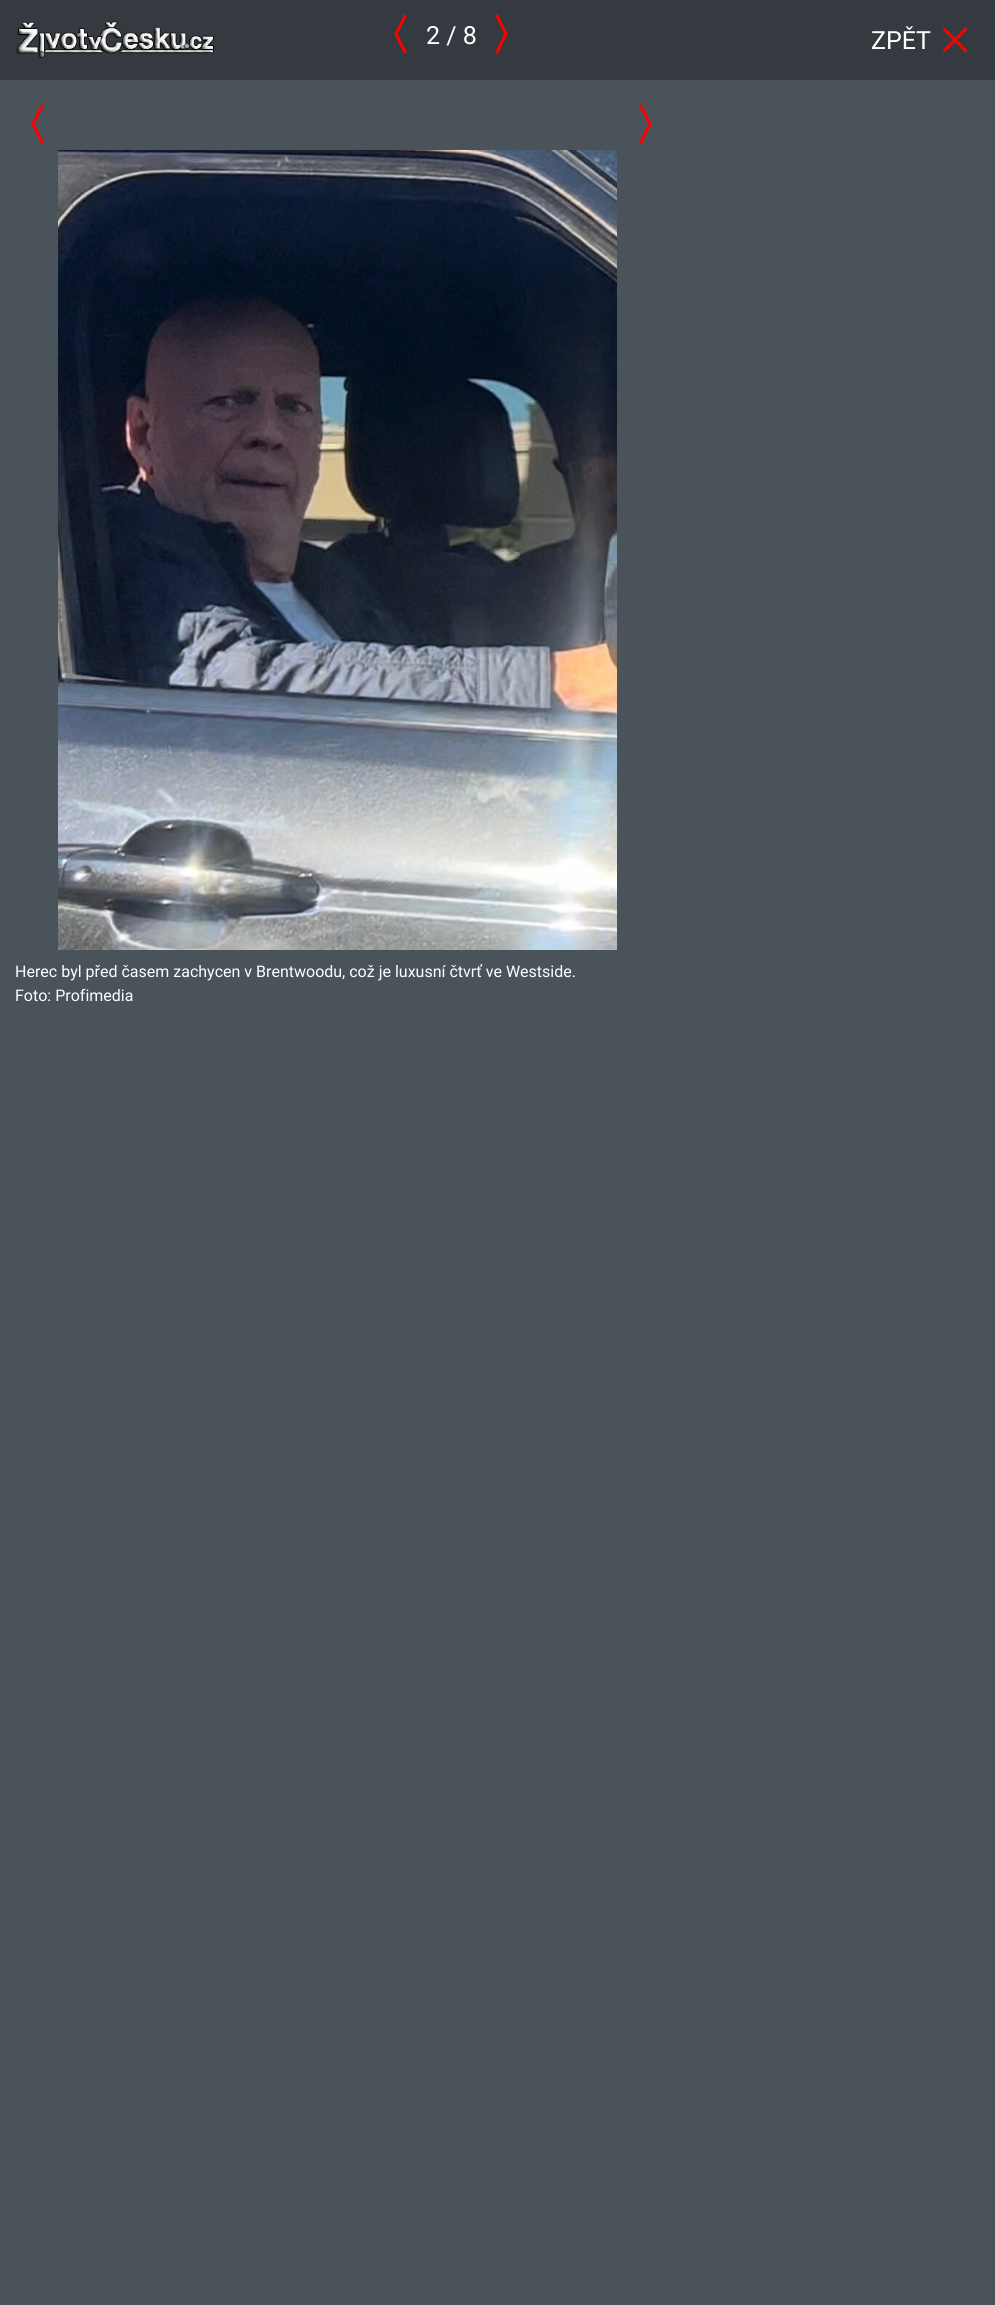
import math
import cairocffi as cairo

surface = cairo.ImageSurface(cairo.FORMAT_RGB24, 995, 2305)
cr = cairo.Context(surface)
options = cairo.FontOptions()
options.set_hint_metrics(cairo.HINT_METRICS_OFF)
options.set_hint_style(cairo.HINT_STYLE_NONE)
cr.set_font_options(options)
cr.set_miter_limit(4)


def use_color(code):
    cr.set_source_rgb(*(v / 255 for v in bytes.fromhex(code[-6:])))


def picture(path, x, y, w, h):
    cr.save()
    cr.set_source_surface(cairo.ImageSurface.create_from_png(path), x, y)
    cr.rectangle(x, y, w, h)
    cr.fill()
    cr.restore()


use_color("#4a525a")
cr.paint()
use_color("#343a40")
cr.rectangle(0, 0, 995, 80)
cr.fill()
picture("img1.png", 16, 21, 198, 37)
picture("img2.png", 394, 14, 13, 40)
cr.select_font_face("Roboto")
cr.set_font_size(25)
use_color("#ffffff")
cr.move_to(426, 44)
cr.show_text("2 / 8")
picture("img3.png", 495, 14, 13, 40)
cr.move_to(871, 49)
cr.show_text("ZPĚT")
picture("img4.png", 943, 28, 24, 24)
picture("img5.png", 31, 104, 13, 40)
picture("img6.png", 639, 104, 13, 40)
picture("img7.png", 58, 150, 559, 800)
cr.set_font_size(16)
cr.move_to(15, 977)
cr.show_text("Herec byl před časem zachycen v Brentwoodu, což je luxusní čtvrť ve Westside.")
cr.move_to(15, 1001)
cr.show_text("Foto: Profimedia")
surface.write_to_png("result.png")
